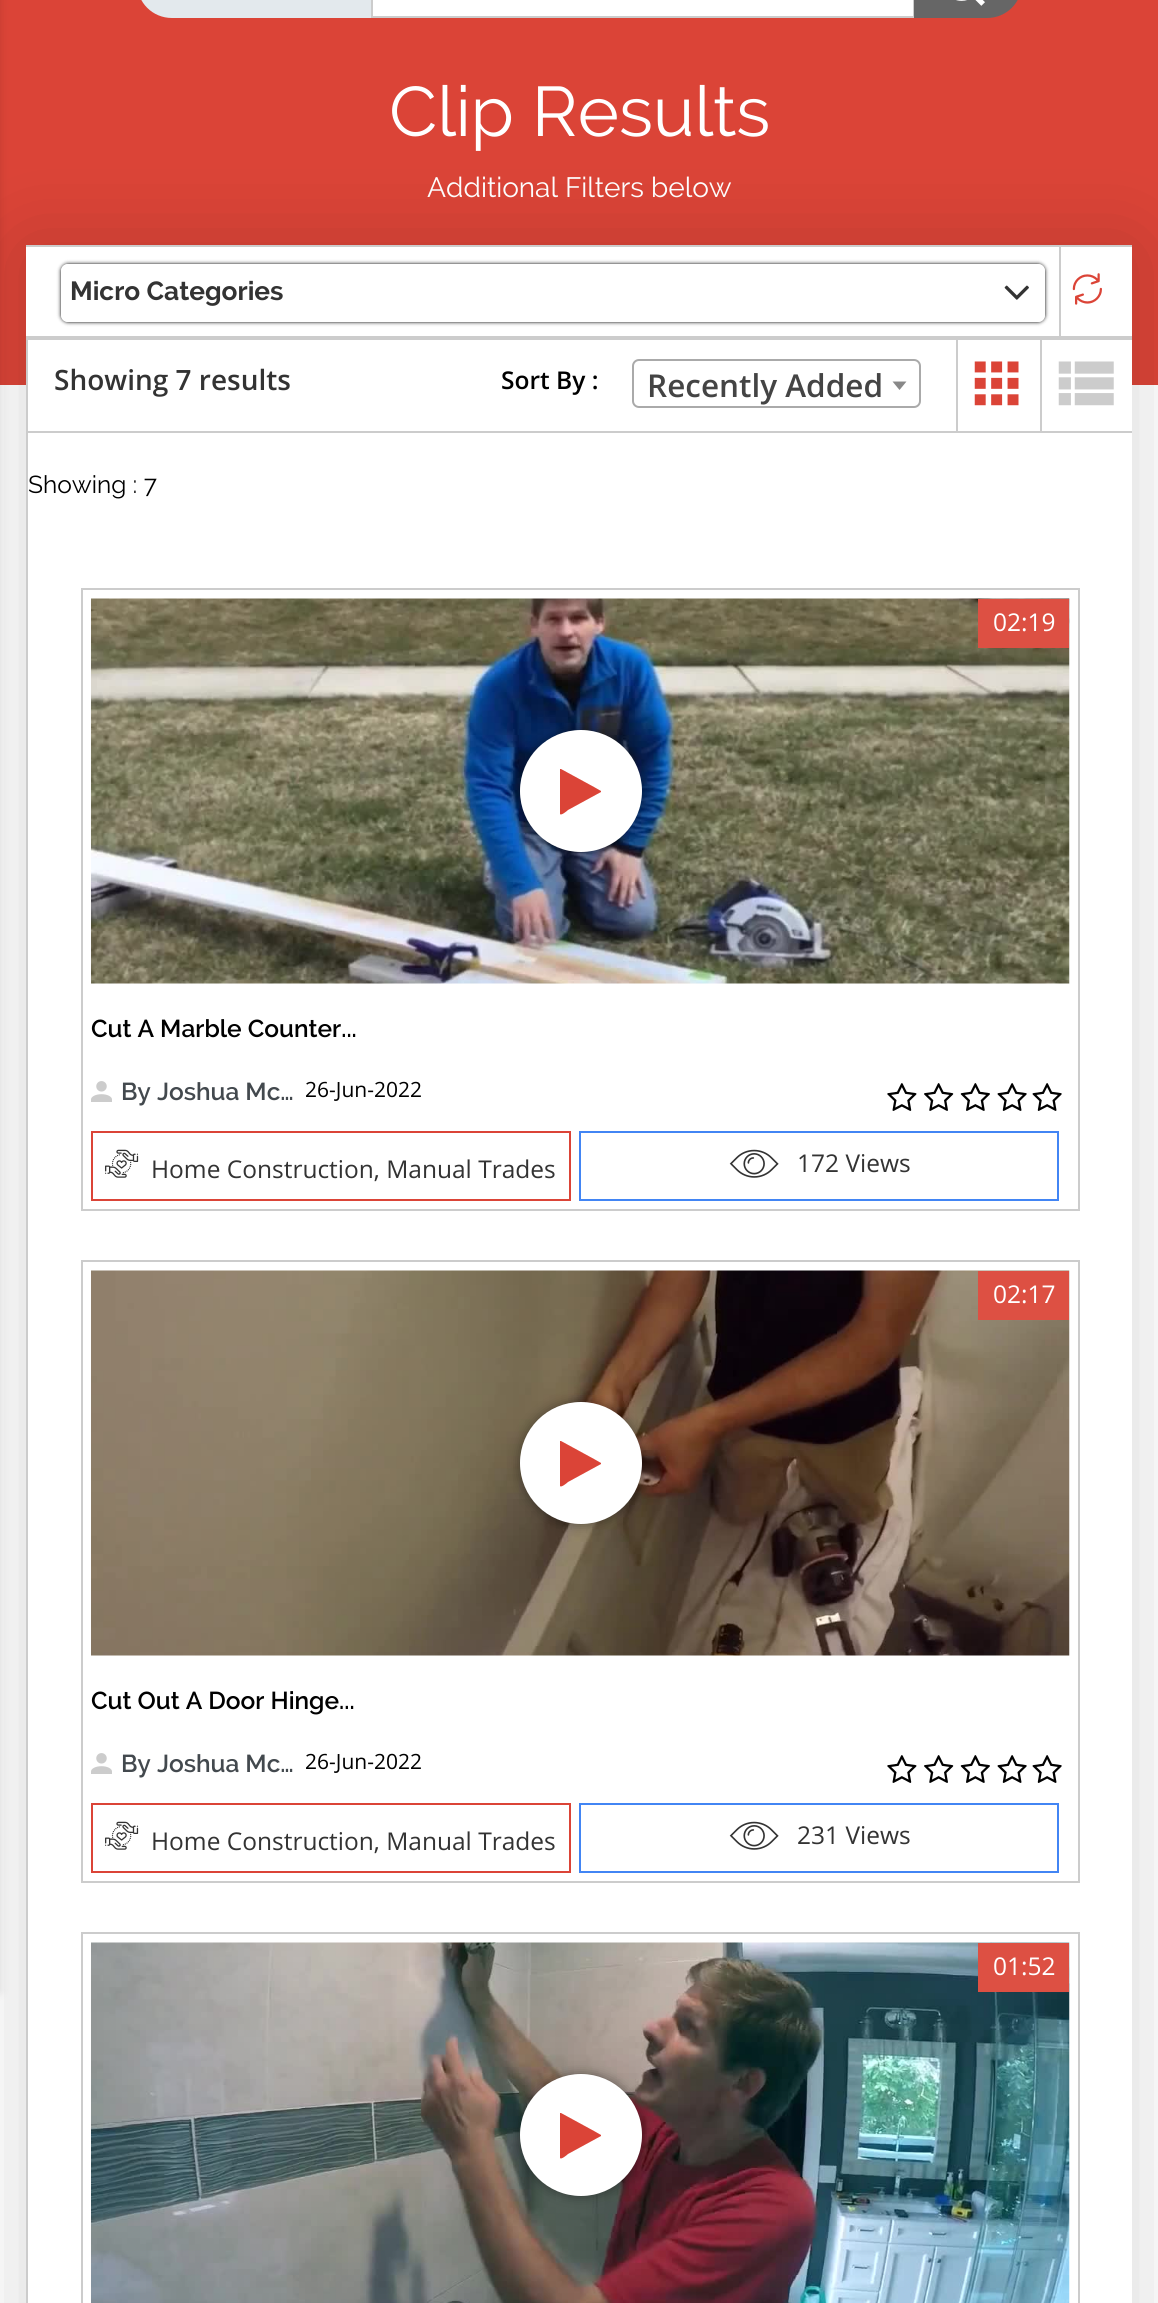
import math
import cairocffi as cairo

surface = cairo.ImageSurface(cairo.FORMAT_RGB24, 1158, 2303)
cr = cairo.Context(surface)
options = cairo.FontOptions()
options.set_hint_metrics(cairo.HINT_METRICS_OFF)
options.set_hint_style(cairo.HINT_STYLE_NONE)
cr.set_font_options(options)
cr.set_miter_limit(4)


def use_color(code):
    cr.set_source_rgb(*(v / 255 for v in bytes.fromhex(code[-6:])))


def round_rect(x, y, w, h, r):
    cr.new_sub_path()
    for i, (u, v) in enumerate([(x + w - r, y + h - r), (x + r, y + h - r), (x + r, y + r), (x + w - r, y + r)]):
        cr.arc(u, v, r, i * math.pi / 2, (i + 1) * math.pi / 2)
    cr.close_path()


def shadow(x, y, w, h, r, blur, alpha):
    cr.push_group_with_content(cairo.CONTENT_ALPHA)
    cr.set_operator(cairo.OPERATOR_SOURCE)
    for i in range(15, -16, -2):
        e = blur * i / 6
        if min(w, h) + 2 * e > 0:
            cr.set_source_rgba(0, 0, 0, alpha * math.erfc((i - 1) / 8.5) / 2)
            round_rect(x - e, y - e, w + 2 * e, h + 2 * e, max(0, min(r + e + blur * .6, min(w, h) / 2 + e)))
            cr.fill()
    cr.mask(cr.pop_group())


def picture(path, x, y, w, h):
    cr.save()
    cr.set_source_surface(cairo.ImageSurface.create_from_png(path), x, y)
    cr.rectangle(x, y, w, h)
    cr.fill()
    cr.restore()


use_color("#ffffff")
cr.paint()
use_color("#db4437")
cr.rectangle(0, 0, 1158, 385)
cr.fill()
use_color("#000000")
shadow(-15, -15, 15, 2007, 0, 5, 0.11)
use_color("#e3e9ed")
cr.new_path()
cr.move_to(172, -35)
cr.line_to(371, -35)
cr.line_to(371, 18)
cr.line_to(172, 18)
cr.curve_to(152.5, 18, 137, 2.5, 137, -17)
cr.line_to(137, 0)
cr.curve_to(137, -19.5, 152.5, -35, 172, -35)
cr.close_path()
cr.fill()
use_color("#ffffff")
cr.rectangle(372, -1, 542, 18)
cr.fill_preserve()
use_color("#cccccc")
cr.stroke()
use_color("#666666")
cr.new_path()
cr.move_to(914, -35)
cr.line_to(987, -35)
cr.curve_to(1006.5, -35, 1022, -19.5, 1022, 0)
cr.line_to(1022, -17)
cr.curve_to(1022, 2.5, 1006.5, 18, 987, 18)
cr.line_to(914, 18)
cr.close_path()
cr.fill()
picture("img1.png", 956, 0, 29, 6)
cr.select_font_face("Raleway")
cr.set_font_size(70)
use_color("#ffffff")
cr.move_to(389, 136)
cr.show_text("Clip Results")
cr.set_font_size(28)
cr.move_to(427, 197)
cr.show_text("Additional Filters below")
use_color("#000000")
shadow(26, 250, 1106, 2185, 0, 44, 0.16)
use_color("#ffffff")
cr.rectangle(26, 247, 1106, 2056)
cr.fill()
use_color("#cccccc")
cr.rectangle(26, 245, 1106, 2)
cr.fill()
cr.rectangle(26, 336, 1106, 4)
cr.fill()
cr.save()
cr.set_fill_rule(cairo.FILL_RULE_EVEN_ODD)
cr.new_path()
cr.move_to(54, 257)
cr.line_to(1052, 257)
cr.line_to(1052, 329)
cr.line_to(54, 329)
cr.close_path()
cr.move_to(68, 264)
cr.line_to(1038, 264)
cr.curve_to(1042, 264, 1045, 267, 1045, 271)
cr.line_to(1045, 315)
cr.curve_to(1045, 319, 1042, 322, 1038, 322)
cr.line_to(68, 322)
cr.curve_to(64, 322, 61, 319, 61, 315)
cr.line_to(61, 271)
cr.curve_to(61, 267, 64, 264, 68, 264)
cr.close_path()
cr.clip()
use_color("#000000")
shadow(61, 264, 984, 58, 7, 2, 1)
cr.restore()
cr.select_font_face("Raleway", cairo.FONT_SLANT_NORMAL, cairo.FONT_WEIGHT_BOLD)
cr.set_font_size(26.25)
use_color("#333333")
cr.move_to(70, 300)
cr.show_text("Micro Categories")
picture("img2.png", 1004, 285, 25, 15)
use_color("#cccccc")
cr.rectangle(1059, 247, 2, 91)
cr.fill()
picture("img3.png", 1072, 273, 30, 32)
cr.rectangle(26, 340, 2, 1963)
cr.fill()
cr.rectangle(28, 431, 1104, 2)
cr.fill()
cr.select_font_face("Open Sans SemiBold")
cr.set_font_size(28)
use_color("#333333")
cr.move_to(54, 390)
cr.show_text("Showing 7 results")
cr.set_font_size(24.5)
use_color("#000000")
cr.move_to(501, 389)
cr.show_text("Sort By :")
round_rect(633, 360, 287, 47, 6)
use_color("#aaaaaa")
cr.stroke()
cr.set_font_size(31.5)
use_color("#444444")
cr.move_to(647, 397)
cr.show_text("Recently Added")
use_color("#888888")
cr.new_path()
cr.move_to(892.5, 381.5)
cr.line_to(906.5, 381.5)
cr.line_to(899.5, 390)
cr.close_path()
cr.fill()
use_color("#cccccc")
cr.rectangle(956, 340, 2, 91)
cr.fill()
picture("img4.png", 974, 361, 45, 45)
cr.rectangle(1040, 340, 2, 91)
cr.fill()
picture("img5.png", 1058, 361, 56, 45)
cr.select_font_face("Raleway")
cr.set_font_size(24.5)
use_color("#000000")
cr.move_to(28, 493)
cr.show_text("Showing : 7")
cr.rectangle(82, 589, 997, 621)
use_color("#cccccc")
cr.stroke()
picture("img6.png", 91, 598, 979, 386)
use_color("#dd5043")
cr.rectangle(978, 599, 91, 49)
cr.fill()
cr.select_font_face("Open Sans")
use_color("#ffffff")
cr.move_to(993, 631)
cr.show_text("02:19")
use_color("#000000")
shadow(520, 730, 122, 122, 61, 6, 0.39)
use_color("#ffffff")
cr.arc(581, 791, 60, 0, 2 * math.pi)
cr.fill_preserve()
cr.stroke()
use_color("#db4437")
cr.new_path()
cr.move_to(601, 792)
cr.line_to(568, 810)
cr.curve_to(567, 811, 561, 816, 560, 814)
cr.line_to(560, 769)
cr.line_to(561, 769)
cr.line_to(594, 787)
cr.line_to(601, 791)
cr.close_path()
cr.fill()
cr.select_font_face("Raleway SemiBold")
use_color("#000000")
cr.move_to(91, 1037)
cr.show_text("Cut A Marble Counter...")
picture("img7.png", 91, 1081, 21, 21)
use_color("#43494e")
cr.move_to(121, 1100)
cr.show_text("By Joshua Mc…")
cr.select_font_face("Open Sans")
cr.set_font_size(21)
use_color("#000000")
cr.move_to(305, 1097)
cr.show_text("26-Jun-2022")
picture("img8.png", 887, 1083, 30, 28)
picture("img9.png", 924, 1083, 30, 28)
picture("img10.png", 960, 1083, 30, 28)
picture("img11.png", 997, 1083, 30, 28)
picture("img12.png", 1032, 1083, 30, 28)
cr.rectangle(92, 1132, 478, 68)
use_color("#db4437")
cr.stroke()
picture("img13.png", 105, 1149, 34, 29)
cr.set_font_size(24.5)
use_color("#333333")
cr.move_to(151, 1178)
cr.show_text("Home Construction, Manual Trades")
cr.rectangle(580, 1132, 478, 68)
use_color("#4285f4")
cr.stroke()
picture("img14.png", 729, 1149, 50, 29)
use_color("#333333")
cr.move_to(797, 1172)
cr.show_text("172 Views")
cr.rectangle(82, 1261, 997, 621)
use_color("#cccccc")
cr.stroke()
picture("img15.png", 91, 1270, 979, 386)
use_color("#dd5043")
cr.rectangle(978, 1271, 91, 49)
cr.fill()
use_color("#ffffff")
cr.move_to(993, 1303)
cr.show_text("02:17")
use_color("#000000")
shadow(520, 1402, 122, 122, 61, 6, 0.39)
use_color("#ffffff")
cr.arc(581, 1463, 60, 0, 2 * math.pi)
cr.fill_preserve()
cr.stroke()
use_color("#db4437")
cr.new_path()
cr.move_to(601, 1464)
cr.line_to(568, 1482)
cr.curve_to(567, 1483, 561, 1488, 560, 1486)
cr.line_to(560, 1441)
cr.line_to(561, 1441)
cr.line_to(594, 1459)
cr.line_to(601, 1463)
cr.close_path()
cr.fill()
cr.select_font_face("Raleway SemiBold")
use_color("#000000")
cr.move_to(91, 1709)
cr.show_text("Cut Out A Door Hinge...")
picture("img7.png", 91, 1753, 21, 21)
use_color("#43494e")
cr.move_to(121, 1772)
cr.show_text("By Joshua Mc…")
cr.select_font_face("Open Sans")
cr.set_font_size(21)
use_color("#000000")
cr.move_to(305, 1769)
cr.show_text("26-Jun-2022")
picture("img8.png", 887, 1755, 30, 28)
picture("img9.png", 924, 1755, 30, 28)
picture("img10.png", 960, 1755, 30, 28)
picture("img11.png", 997, 1755, 30, 28)
picture("img12.png", 1032, 1755, 30, 28)
cr.rectangle(92, 1804, 478, 68)
use_color("#db4437")
cr.stroke()
picture("img13.png", 105, 1821, 34, 29)
cr.set_font_size(24.5)
use_color("#333333")
cr.move_to(151, 1850)
cr.show_text("Home Construction, Manual Trades")
cr.rectangle(580, 1804, 478, 68)
use_color("#4285f4")
cr.stroke()
picture("img14.png", 729, 1821, 50, 29)
use_color("#333333")
cr.move_to(797, 1844)
cr.show_text("231 Views")
cr.rectangle(82, 1933, 997, 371)
use_color("#cccccc")
cr.stroke()
picture("img16.png", 91, 1942, 979, 361)
use_color("#dd5043")
cr.rectangle(978, 1943, 91, 49)
cr.fill()
use_color("#ffffff")
cr.move_to(993, 1975)
cr.show_text("01:52")
use_color("#000000")
shadow(520, 2074, 122, 122, 61, 6, 0.39)
use_color("#ffffff")
cr.arc(581, 2135, 60, 0, 2 * math.pi)
cr.fill_preserve()
cr.stroke()
use_color("#db4437")
cr.new_path()
cr.move_to(601, 2136)
cr.line_to(568, 2154)
cr.curve_to(567, 2155, 561, 2160, 560, 2158)
cr.line_to(560, 2113)
cr.line_to(561, 2113)
cr.line_to(594, 2131)
cr.line_to(601, 2135)
cr.close_path()
cr.fill()
surface.write_to_png("result.png")
